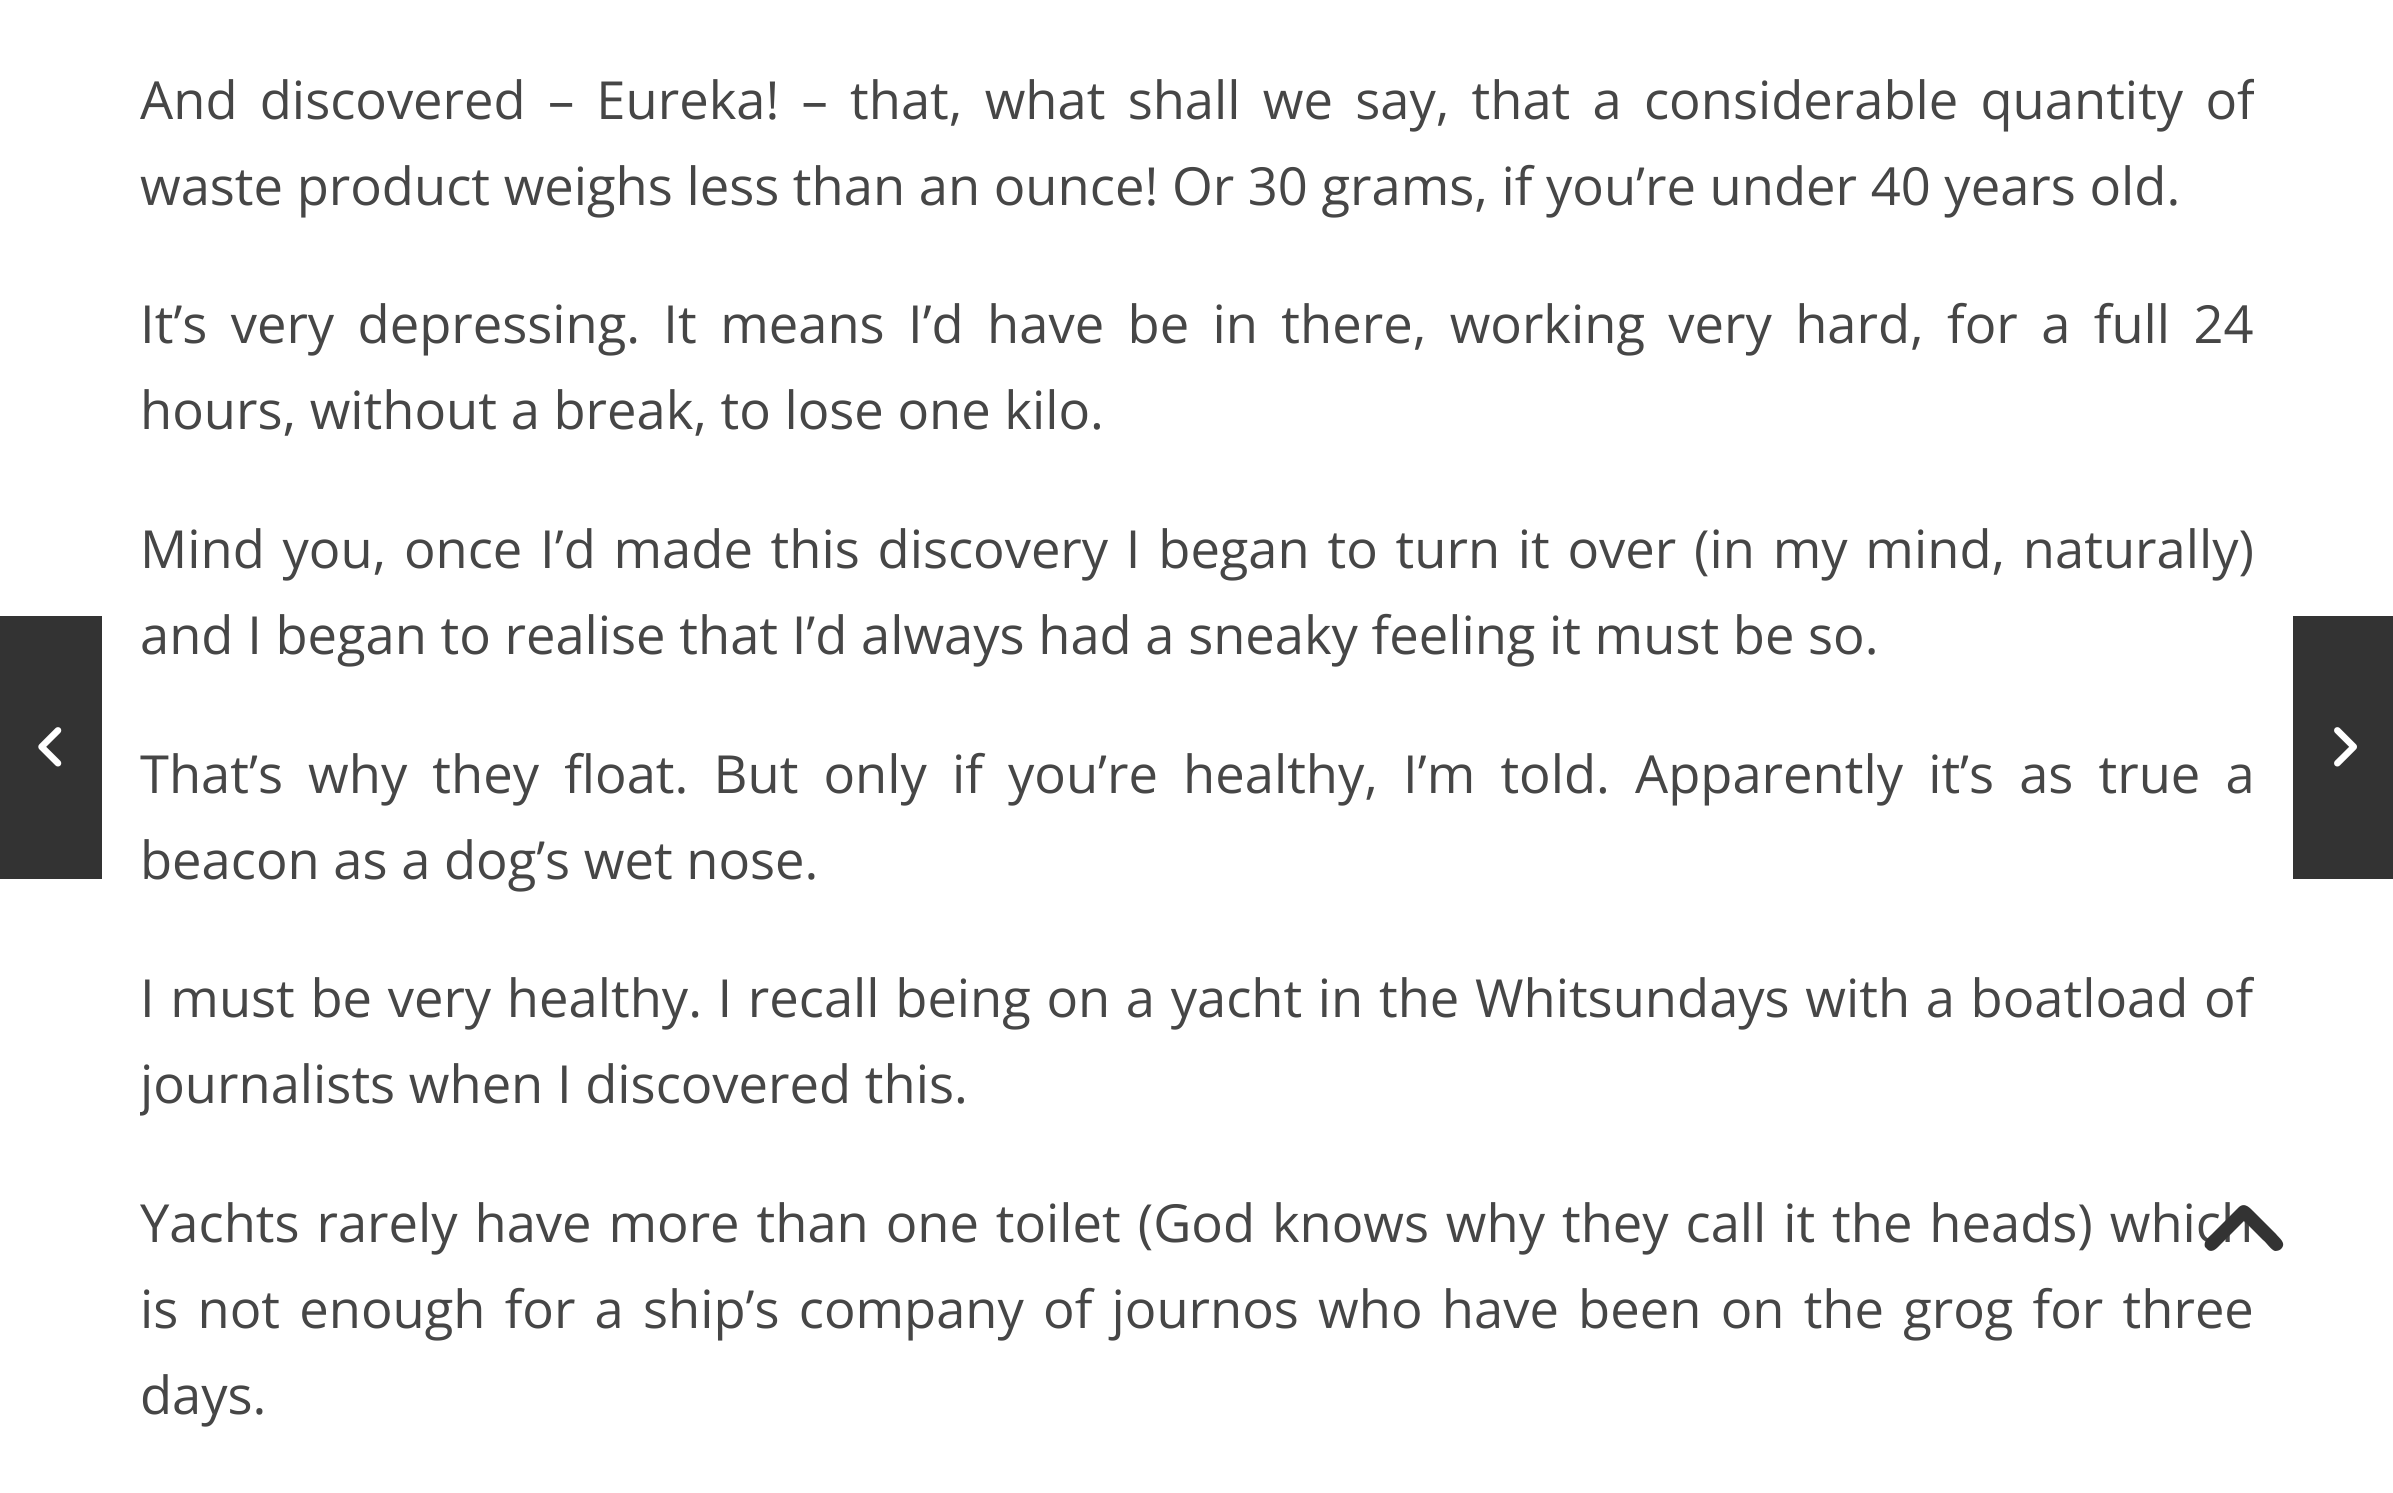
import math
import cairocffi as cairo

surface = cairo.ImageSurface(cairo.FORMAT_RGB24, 2393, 1493)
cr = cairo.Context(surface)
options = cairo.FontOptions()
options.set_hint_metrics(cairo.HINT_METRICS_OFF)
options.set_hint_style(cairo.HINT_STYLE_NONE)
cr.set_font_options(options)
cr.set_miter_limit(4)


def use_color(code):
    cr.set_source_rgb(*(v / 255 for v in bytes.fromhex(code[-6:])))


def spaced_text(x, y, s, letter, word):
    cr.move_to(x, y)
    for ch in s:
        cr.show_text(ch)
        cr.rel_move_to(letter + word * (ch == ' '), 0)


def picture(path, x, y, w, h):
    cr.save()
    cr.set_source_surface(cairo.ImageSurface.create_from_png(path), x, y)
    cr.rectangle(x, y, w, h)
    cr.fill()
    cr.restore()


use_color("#ffffff")
cr.paint()
use_color("#333333")
cr.rectangle(0, 616, 102, 263)
cr.fill()
picture("img1.png", 38, 727, 24, 40)
cr.save()
cr.rectangle(140, 0, 2114, 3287)
cr.clip()
cr.select_font_face("Open Sans")
cr.set_font_size(52.5)
use_color("#464646")
spaced_text(140, 119, "And discovered – Eureka! – that, what shall we say, that a considerable quantity of", 0, 8.6)
cr.restore()
cr.select_font_face("Open Sans")
cr.set_font_size(52.5)
use_color("#464646")
cr.move_to(140, 205)
cr.show_text("waste product weighs less than an ounce! Or 30 grams, if you’re under 40 years old.")
spaced_text(140, 343, "It’s very depressing. It means I’d have be in there, working very hard, for a full 24", 0, 9.75)
cr.move_to(140, 429)
cr.show_text("hours, without a break, to lose one kilo.")
spaced_text(140, 568, "Mind you, once I’d made this discovery I began to turn it over (in my mind, naturally)", 0, 4.1)
cr.move_to(140, 654)
cr.show_text("and I began to realise that I’d always had a sneaky feeling it must be so.")
spaced_text(140, 793, "That’s why they float. But only if you’re healthy, I’m told. Apparently it’s as true a", 0, 11.5)
cr.move_to(140, 879)
cr.show_text("beacon as a dog’s wet nose.")
cr.save()
cr.rectangle(140, 0, 2114, 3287)
cr.clip()
spaced_text(140, 1017, "I must be very healthy. I recall being on a yacht in the Whitsundays with a boatload of", 0, 2)
cr.move_to(140, 1103)
cr.show_text("journalists when I discovered this.")
cr.restore()
spaced_text(140, 1242, "Yachts rarely have more than one toilet (God knows why they call it the heads) which", 0, 3.25)
spaced_text(140, 1328, "is not enough for a ship’s company of journos who have been on the grog for three", 0, 5.6)
cr.move_to(140, 1414)
cr.show_text("days.")
use_color("#333333")
cr.rectangle(2293, 616, 100, 263)
cr.fill()
picture("img2.png", 2334, 727, 23, 40)
cr.new_path()
cr.move_to(2239, 1207)
cr.curve_to(2245, 1202, 2250, 1208, 2254, 1212)
cr.line_to(2276, 1234)
cr.curve_to(2279, 1238, 2287, 1243, 2281, 1249)
cr.curve_to(2280, 1250, 2278, 1251, 2275, 1251)
cr.curve_to(2271, 1250, 2266, 1242, 2263, 1240)
cr.line_to(2244, 1221)
cr.line_to(2221, 1244)
cr.curve_to(2217, 1248, 2213, 1253, 2208, 1250)
cr.curve_to(2207, 1249, 2206, 1248, 2205, 1247)
cr.curve_to(2203, 1241, 2209, 1237, 2212, 1234)
cr.close_path()
cr.fill()
surface.write_to_png("result.png")
